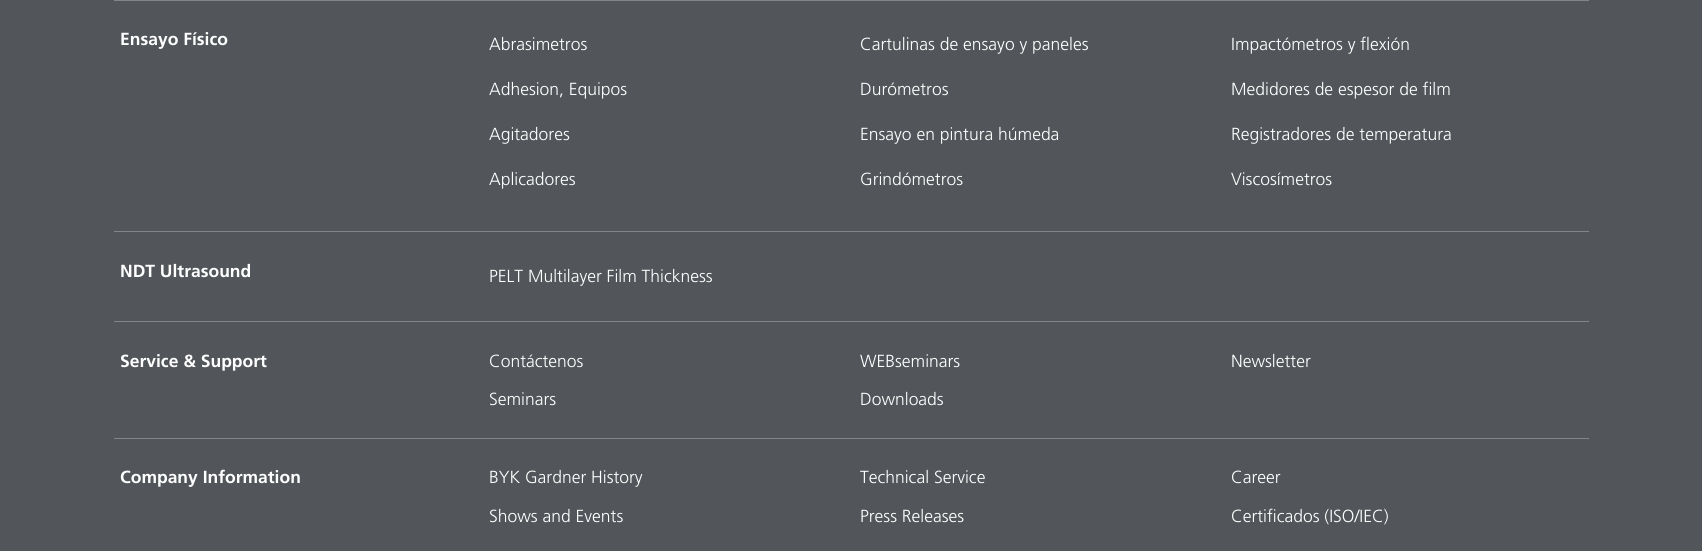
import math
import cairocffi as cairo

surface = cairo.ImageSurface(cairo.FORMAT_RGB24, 1702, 551)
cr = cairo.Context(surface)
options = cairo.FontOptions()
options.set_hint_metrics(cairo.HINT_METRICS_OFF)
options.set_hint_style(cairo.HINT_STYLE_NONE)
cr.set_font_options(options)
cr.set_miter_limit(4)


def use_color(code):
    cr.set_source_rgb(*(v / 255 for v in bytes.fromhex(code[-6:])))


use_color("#52565a")
cr.paint()
use_color("#838689")
cr.rectangle(114, 0, 1475, 1)
cr.fill()
cr.rectangle(114, 231, 1475, 1)
cr.fill()
cr.select_font_face("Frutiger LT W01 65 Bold", cairo.FONT_SLANT_NORMAL, cairo.FONT_WEIGHT_BOLD)
cr.set_font_size(17.5)
use_color("#ffffff")
cr.move_to(120, 45)
cr.show_text("Ensayo Físico")
cr.select_font_face("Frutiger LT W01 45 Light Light")
cr.move_to(489, 50)
cr.show_text("Abrasimetros")
cr.move_to(860, 50)
cr.show_text("Cartulinas de ensayo y paneles")
cr.move_to(1231, 50)
cr.show_text("Impactómetros y flexión")
cr.move_to(489, 95)
cr.show_text("Adhesion, Equipos")
cr.move_to(860, 95)
cr.show_text("Durómetros")
cr.move_to(1231, 95)
cr.show_text("Medidores de espesor de film")
cr.move_to(489, 140)
cr.show_text("Agitadores")
cr.move_to(860, 140)
cr.show_text("Ensayo en pintura húmeda")
cr.move_to(1231, 140)
cr.show_text("Registradores de temperatura")
cr.move_to(489, 185)
cr.show_text("Aplicadores")
cr.move_to(860, 185)
cr.show_text("Grindómetros")
cr.move_to(1231, 185)
cr.show_text("Viscosímetros")
use_color("#838689")
cr.rectangle(114, 321, 1475, 1)
cr.fill()
cr.select_font_face("Frutiger LT W01 65 Bold", cairo.FONT_SLANT_NORMAL, cairo.FONT_WEIGHT_BOLD)
use_color("#ffffff")
cr.move_to(120, 277)
cr.show_text("NDT Ultrasound")
cr.select_font_face("Frutiger LT W01 45 Light Light")
cr.move_to(489, 282)
cr.show_text("PELT Multilayer Film Thickness")
use_color("#838689")
cr.rectangle(114, 438, 1475, 1)
cr.fill()
cr.select_font_face("Frutiger LT W01 65 Bold", cairo.FONT_SLANT_NORMAL, cairo.FONT_WEIGHT_BOLD)
use_color("#ffffff")
cr.move_to(120, 367)
cr.show_text("Service & Support")
cr.select_font_face("Frutiger LT W01 45 Light Light")
cr.move_to(489, 367)
cr.show_text("Contáctenos")
cr.move_to(860, 367)
cr.show_text("WEBseminars")
cr.move_to(1231, 367)
cr.show_text("Newsletter")
cr.move_to(489, 405)
cr.show_text("Seminars")
cr.move_to(860, 405)
cr.show_text("Downloads")
cr.select_font_face("Frutiger LT W01 65 Bold", cairo.FONT_SLANT_NORMAL, cairo.FONT_WEIGHT_BOLD)
cr.move_to(120, 483)
cr.show_text("Company Information")
cr.select_font_face("Frutiger LT W01 45 Light Light")
cr.move_to(489, 483)
cr.show_text("BYK Gardner History")
cr.move_to(860, 483)
cr.show_text("Technical Service")
cr.move_to(1231, 483)
cr.show_text("Career")
cr.move_to(489, 522)
cr.show_text("Shows and Events")
cr.move_to(860, 522)
cr.show_text("Press Releases")
cr.move_to(1231, 522)
cr.show_text("Certificados (ISO/IEC)")
surface.write_to_png("result.png")
